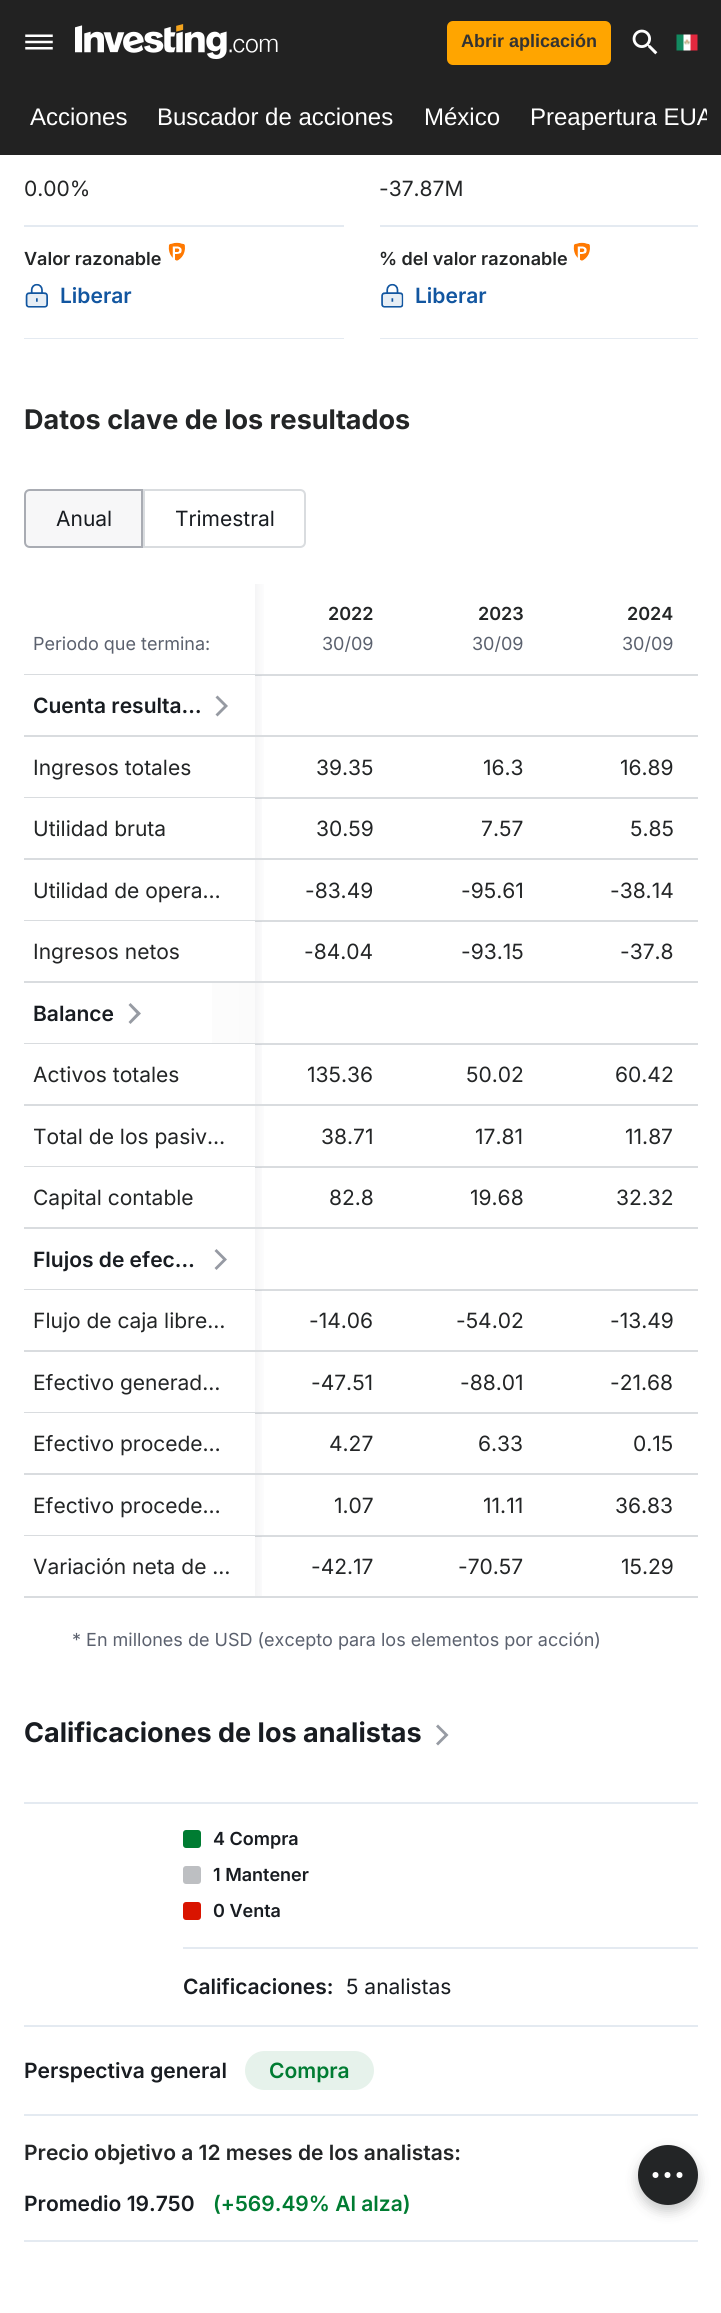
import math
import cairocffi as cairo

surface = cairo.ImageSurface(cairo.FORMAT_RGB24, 721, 2313)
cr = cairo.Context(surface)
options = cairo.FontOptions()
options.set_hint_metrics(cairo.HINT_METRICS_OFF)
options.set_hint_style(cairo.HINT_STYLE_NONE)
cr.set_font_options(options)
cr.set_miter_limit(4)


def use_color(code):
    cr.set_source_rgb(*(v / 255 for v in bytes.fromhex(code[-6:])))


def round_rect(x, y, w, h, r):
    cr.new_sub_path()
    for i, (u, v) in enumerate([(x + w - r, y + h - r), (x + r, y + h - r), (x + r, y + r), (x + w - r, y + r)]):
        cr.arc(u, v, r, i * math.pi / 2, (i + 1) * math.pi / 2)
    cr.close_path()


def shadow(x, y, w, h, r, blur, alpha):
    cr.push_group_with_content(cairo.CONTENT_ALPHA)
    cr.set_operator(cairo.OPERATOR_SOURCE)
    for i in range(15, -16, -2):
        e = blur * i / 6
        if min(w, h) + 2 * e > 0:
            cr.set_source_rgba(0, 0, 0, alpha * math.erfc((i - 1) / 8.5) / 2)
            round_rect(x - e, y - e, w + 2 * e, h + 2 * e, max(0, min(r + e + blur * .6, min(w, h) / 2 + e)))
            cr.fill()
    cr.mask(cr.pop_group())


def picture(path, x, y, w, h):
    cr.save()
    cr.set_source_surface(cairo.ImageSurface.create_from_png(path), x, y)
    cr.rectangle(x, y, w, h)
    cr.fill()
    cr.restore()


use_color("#ffffff")
cr.paint()
use_color("#222222")
cr.rectangle(0, 0, 721, 155)
cr.fill()
picture("img1.png", 25, 34, 28, 16)
picture("img2.png", 75, 24, 203, 36)
use_color("#ffa500")
round_rect(448, 22, 162, 42, 5)
cr.fill_preserve()
cr.stroke()
cr.select_font_face("Liberation Sans", cairo.FONT_SLANT_NORMAL, cairo.FONT_WEIGHT_BOLD)
cr.set_font_size(18)
use_color("#333333")
cr.move_to(461, 47)
cr.show_text("Abrir aplicación")
picture("img3.png", 632, 29, 26, 26)
picture("img4.png", 676, 34, 22, 17)
cr.select_font_face("Liberation Sans")
cr.set_font_size(24)
use_color("#ffffff")
cr.move_to(30, 125)
cr.show_text("Acciones")
cr.move_to(157, 125)
cr.show_text("Buscador de acciones")
cr.move_to(424, 125)
cr.show_text("México")
cr.save()
cr.rectangle(15, 84, 692, 71)
cr.clip()
cr.move_to(530, 125)
cr.show_text("Preapertura EUA")
cr.restore()
use_color("#e4eaf1")
cr.rectangle(24, 225, 320, 2)
cr.fill()
cr.select_font_face("Inter")
cr.set_font_size(21)
use_color("#232526")
cr.move_to(24, 196)
cr.show_text("0.00%")
use_color("#e4eaf1")
cr.rectangle(380, 225, 318, 2)
cr.fill()
use_color("#232526")
cr.move_to(379, 196)
cr.show_text("-37.87M")
use_color("#e4eaf1")
cr.rectangle(24, 338, 320, 1)
cr.fill()
cr.select_font_face("Inter SemiBold")
cr.set_font_size(18)
use_color("#232526")
cr.move_to(24, 265)
cr.show_text("Valor razonable")
picture("img5.png", 168, 242, 17, 19)
picture("img6.png", 25, 283, 23, 25)
cr.set_font_size(21)
use_color("#1256a0")
cr.move_to(60, 303)
cr.show_text("Liberar")
use_color("#e4eaf1")
cr.rectangle(380, 338, 318, 1)
cr.fill()
cr.set_font_size(18)
use_color("#232526")
cr.move_to(379, 265)
cr.show_text("% del valor razonable")
picture("img7.png", 573, 242, 17, 19)
picture("img8.png", 381, 283, 23, 25)
cr.set_font_size(21)
use_color("#1256a0")
cr.move_to(415, 303)
cr.show_text("Liberar")
cr.select_font_face("Inter", cairo.FONT_SLANT_NORMAL, cairo.FONT_WEIGHT_BOLD)
cr.set_font_size(27)
use_color("#232526")
cr.move_to(24, 429)
cr.show_text("Datos clave de los resultados")
use_color("#f7f7f8")
cr.new_path()
cr.move_to(30, 490)
cr.line_to(142, 490)
cr.line_to(142, 547)
cr.line_to(30, 547)
cr.curve_to(27, 547, 25, 545, 25, 542)
cr.line_to(25, 495)
cr.curve_to(25, 492, 27, 490, 30, 490)
cr.close_path()
cr.fill_preserve()
use_color("#a9acb3")
cr.stroke()
cr.select_font_face("Inter")
cr.set_font_size(21)
use_color("#181c21")
cr.move_to(56, 526)
cr.show_text("Anual")
cr.new_path()
cr.move_to(144, 490)
cr.line_to(300, 490)
cr.curve_to(303, 490, 305, 492, 305, 495)
cr.line_to(305, 542)
cr.curve_to(305, 545, 303, 547, 300, 547)
cr.line_to(144, 547)
cr.close_path()
use_color("#d9dcdf")
cr.stroke()
use_color("#181c21")
cr.move_to(175, 526)
cr.show_text("Trimestral")
cr.set_font_size(18)
use_color("#5b616e")
cr.move_to(33, 650)
cr.show_text("Periodo que termina:")
gradient = cairo.LinearGradient(255, 629, 267, 629)
gradient.add_color_stop_rgba(0, 0.961, 0.961, 0.965, 1)
gradient.add_color_stop_rgba(1, 1, 1, 1, 1)
cr.set_source(gradient)
cr.rectangle(255, 584, 9, 90)
cr.fill()
use_color("#d9dcdf")
cr.rectangle(248, 674, 450, 2)
cr.fill()
cr.select_font_face("Inter SemiBold")
use_color("#232526")
cr.move_to(328, 620)
cr.show_text("2022")
cr.select_font_face("Inter")
use_color("#5b616e")
cr.move_to(322, 650)
cr.show_text("30/09")
cr.select_font_face("Inter SemiBold")
use_color("#232526")
cr.move_to(478, 620)
cr.show_text("2023")
cr.select_font_face("Inter")
use_color("#5b616e")
cr.move_to(472, 650)
cr.show_text("30/09")
cr.select_font_face("Inter SemiBold")
use_color("#232526")
cr.move_to(627, 620)
cr.show_text("2024")
cr.select_font_face("Inter")
use_color("#5b616e")
cr.move_to(622, 650)
cr.show_text("30/09")
use_color("#d9dcdf")
cr.rectangle(24, 674, 224, 1)
cr.fill()
use_color("#ffffff")
cr.rectangle(248, 675, 7, 1)
cr.fill()
cr.select_font_face("Inter SemiBold")
cr.set_font_size(21)
use_color("#181c21")
cr.move_to(33, 713)
cr.show_text("Cuenta resulta…")
use_color("#969aa2")
cr.set_fill_rule(cairo.FILL_RULE_EVEN_ODD)
cr.new_path()
cr.move_to(224, 706)
cr.line_to(215.5, 714.5)
cr.line_to(217.5, 716.5)
cr.line_to(228, 706)
cr.line_to(217.5, 695.5)
cr.line_to(215.5, 697.5)
cr.close_path()
cr.fill()
gradient = cairo.LinearGradient(255, 705, 267, 705)
gradient.add_color_stop_rgba(0, 0.184, 0.184, 0.278, 0.05)
gradient.add_color_stop_rgba(1, 0.184, 0.184, 0.278, 0)
cr.set_source(gradient)
cr.rectangle(255, 675, 7, 60)
cr.fill()
use_color("#d9dcdf")
cr.rectangle(24, 735, 674, 2)
cr.fill()
cr.select_font_face("Inter")
use_color("#232526")
cr.move_to(33, 775)
cr.show_text("Ingresos totales")
gradient = cairo.LinearGradient(255, 767, 267, 767)
gradient.add_color_stop_rgba(0, 0.961, 0.961, 0.965, 1)
gradient.add_color_stop_rgba(1, 1, 1, 1, 1)
cr.set_source(gradient)
cr.rectangle(255, 737, 9, 60)
cr.fill()
use_color("#d9dcdf")
cr.rectangle(248, 797, 450, 2)
cr.fill()
use_color("#232526")
cr.move_to(316, 775)
cr.show_text("39.35")
cr.move_to(483, 775)
cr.show_text("16.3")
cr.move_to(620, 775)
cr.show_text("16.89")
use_color("#d9dcdf")
cr.rectangle(24, 797, 224, 1)
cr.fill()
use_color("#ffffff")
cr.rectangle(248, 798, 7, 1)
cr.fill()
use_color("#232526")
cr.move_to(33, 836)
cr.show_text("Utilidad bruta")
gradient = cairo.LinearGradient(255, 828, 267, 828)
gradient.add_color_stop_rgba(0, 0.184, 0.184, 0.278, 0.05)
gradient.add_color_stop_rgba(1, 0.184, 0.184, 0.278, 0)
cr.set_source(gradient)
cr.rectangle(255, 798, 7, 60)
cr.fill()
use_color("#232526")
cr.move_to(316, 836)
cr.show_text("30.59")
cr.move_to(481, 836)
cr.show_text("7.57")
cr.move_to(630, 836)
cr.show_text("5.85")
use_color("#d9dcdf")
cr.rectangle(24, 858, 674, 2)
cr.fill()
use_color("#232526")
cr.move_to(33, 898)
cr.show_text("Utilidad de opera…")
gradient = cairo.LinearGradient(255, 890, 267, 890)
gradient.add_color_stop_rgba(0, 0.961, 0.961, 0.965, 1)
gradient.add_color_stop_rgba(1, 1, 1, 1, 1)
cr.set_source(gradient)
cr.rectangle(255, 860, 9, 60)
cr.fill()
use_color("#d9dcdf")
cr.rectangle(248, 920, 450, 2)
cr.fill()
use_color("#232526")
cr.move_to(305, 898)
cr.show_text("-83.49")
cr.move_to(461, 898)
cr.show_text("-95.61")
cr.move_to(610, 898)
cr.show_text("-38.14")
use_color("#d9dcdf")
cr.rectangle(24, 920, 224, 1)
cr.fill()
use_color("#ffffff")
cr.rectangle(248, 921, 7, 1)
cr.fill()
use_color("#232526")
cr.move_to(33, 959)
cr.show_text("Ingresos netos")
gradient = cairo.LinearGradient(255, 951, 267, 951)
gradient.add_color_stop_rgba(0, 0.184, 0.184, 0.278, 0.05)
gradient.add_color_stop_rgba(1, 0.184, 0.184, 0.278, 0)
cr.set_source(gradient)
cr.rectangle(255, 921, 7, 60)
cr.fill()
use_color("#232526")
cr.move_to(304, 959)
cr.show_text("-84.04")
cr.move_to(461, 959)
cr.show_text("-93.15")
cr.move_to(620, 959)
cr.show_text("-37.8")
use_color("#d9dcdf")
cr.rectangle(24, 981, 674, 2)
cr.fill()
cr.select_font_face("Inter SemiBold")
use_color("#181c21")
cr.move_to(33, 1021)
cr.show_text("Balance")
use_color("#979ba3")
cr.new_path()
cr.move_to(136.5, 1013.5)
cr.line_to(128.5, 1022)
cr.line_to(130.5, 1024)
cr.line_to(141, 1013.5)
cr.line_to(130.5, 1003)
cr.line_to(128.5, 1005)
cr.close_path()
cr.fill()
gradient = cairo.LinearGradient(141, 1013, 255, 1013)
gradient.add_color_stop_rgba(0, 1, 1, 1, 1)
gradient.add_color_stop_rgba(1, 0.984, 0.984, 0.984, 1)
cr.set_source(gradient)
cr.rectangle(212, 983, 43, 60)
cr.fill()
gradient = cairo.LinearGradient(255, 1013, 267, 1013)
gradient.add_color_stop_rgba(0, 0.961, 0.961, 0.965, 1)
gradient.add_color_stop_rgba(1, 1, 1, 1, 1)
cr.set_source(gradient)
cr.rectangle(255, 983, 9, 60)
cr.fill()
use_color("#d9dcdf")
cr.rectangle(24, 1043, 224, 1)
cr.fill()
cr.rectangle(248, 1043, 450, 2)
cr.fill()
use_color("#ffffff")
cr.rectangle(248, 1044, 7, 1)
cr.fill()
cr.select_font_face("Inter")
use_color("#232526")
cr.move_to(33, 1082)
cr.show_text("Activos totales")
gradient = cairo.LinearGradient(255, 1074, 267, 1074)
gradient.add_color_stop_rgba(0, 0.184, 0.184, 0.278, 0.05)
gradient.add_color_stop_rgba(1, 0.184, 0.184, 0.278, 0)
cr.set_source(gradient)
cr.rectangle(255, 1044, 7, 60)
cr.fill()
use_color("#232526")
cr.move_to(307, 1082)
cr.show_text("135.36")
cr.move_to(466, 1082)
cr.show_text("50.02")
cr.move_to(615, 1082)
cr.show_text("60.42")
use_color("#d9dcdf")
cr.rectangle(24, 1104, 674, 2)
cr.fill()
use_color("#232526")
cr.move_to(33, 1144)
cr.show_text("Total de los pasiv…")
gradient = cairo.LinearGradient(255, 1136, 267, 1136)
gradient.add_color_stop_rgba(0, 0.961, 0.961, 0.965, 1)
gradient.add_color_stop_rgba(1, 1, 1, 1, 1)
cr.set_source(gradient)
cr.rectangle(255, 1106, 9, 60)
cr.fill()
use_color("#d9dcdf")
cr.rectangle(248, 1166, 450, 2)
cr.fill()
use_color("#232526")
cr.move_to(321, 1144)
cr.show_text("38.71")
cr.move_to(475, 1144)
cr.show_text("17.81")
cr.move_to(625, 1144)
cr.show_text("11.87")
use_color("#d9dcdf")
cr.rectangle(24, 1166, 224, 1)
cr.fill()
use_color("#ffffff")
cr.rectangle(248, 1167, 7, 1)
cr.fill()
use_color("#232526")
cr.move_to(33, 1205)
cr.show_text("Capital contable")
gradient = cairo.LinearGradient(255, 1197, 267, 1197)
gradient.add_color_stop_rgba(0, 0.184, 0.184, 0.278, 0.05)
gradient.add_color_stop_rgba(1, 0.184, 0.184, 0.278, 0)
cr.set_source(gradient)
cr.rectangle(255, 1167, 7, 60)
cr.fill()
use_color("#232526")
cr.move_to(329, 1205)
cr.show_text("82.8")
cr.move_to(470, 1205)
cr.show_text("19.68")
cr.move_to(616, 1205)
cr.show_text("32.32")
use_color("#d9dcdf")
cr.rectangle(24, 1227, 674, 2)
cr.fill()
cr.select_font_face("Inter SemiBold")
use_color("#181c21")
cr.move_to(33, 1267)
cr.show_text("Flujos de efec…")
use_color("#969aa3")
cr.new_path()
cr.move_to(223, 1259.5)
cr.line_to(214.5, 1268)
cr.line_to(216.5, 1270)
cr.line_to(227, 1259.5)
cr.line_to(216.5, 1249)
cr.line_to(214.5, 1251)
cr.close_path()
cr.fill()
gradient = cairo.LinearGradient(255, 1259, 267, 1259)
gradient.add_color_stop_rgba(0, 0.961, 0.961, 0.965, 1)
gradient.add_color_stop_rgba(1, 1, 1, 1, 1)
cr.set_source(gradient)
cr.rectangle(255, 1229, 9, 60)
cr.fill()
use_color("#d9dcdf")
cr.rectangle(24, 1289, 224, 1)
cr.fill()
cr.rectangle(248, 1289, 450, 2)
cr.fill()
use_color("#ffffff")
cr.rectangle(248, 1290, 7, 1)
cr.fill()
cr.select_font_face("Inter")
use_color("#232526")
cr.move_to(33, 1328)
cr.show_text("Flujo de caja libre…")
gradient = cairo.LinearGradient(255, 1320, 267, 1320)
gradient.add_color_stop_rgba(0, 0.184, 0.184, 0.278, 0.05)
gradient.add_color_stop_rgba(1, 0.184, 0.184, 0.278, 0)
cr.set_source(gradient)
cr.rectangle(255, 1290, 7, 60)
cr.fill()
use_color("#232526")
cr.move_to(309, 1328)
cr.show_text("-14.06")
cr.move_to(456, 1328)
cr.show_text("-54.02")
cr.move_to(610, 1328)
cr.show_text("-13.49")
use_color("#d9dcdf")
cr.rectangle(24, 1350, 674, 2)
cr.fill()
use_color("#232526")
cr.move_to(33, 1390)
cr.show_text("Efectivo generad…")
gradient = cairo.LinearGradient(255, 1382, 267, 1382)
gradient.add_color_stop_rgba(0, 0.961, 0.961, 0.965, 1)
gradient.add_color_stop_rgba(1, 1, 1, 1, 1)
cr.set_source(gradient)
cr.rectangle(255, 1352, 9, 60)
cr.fill()
use_color("#d9dcdf")
cr.rectangle(248, 1412, 450, 2)
cr.fill()
use_color("#232526")
cr.move_to(311, 1390)
cr.show_text("-47.51")
cr.move_to(460, 1390)
cr.show_text("-88.01")
cr.move_to(610, 1390)
cr.show_text("-21.68")
use_color("#d9dcdf")
cr.rectangle(24, 1412, 224, 1)
cr.fill()
use_color("#ffffff")
cr.rectangle(248, 1413, 7, 1)
cr.fill()
use_color("#232526")
cr.move_to(33, 1451)
cr.show_text("Efectivo procede…")
gradient = cairo.LinearGradient(255, 1443, 267, 1443)
gradient.add_color_stop_rgba(0, 0.184, 0.184, 0.278, 0.05)
gradient.add_color_stop_rgba(1, 0.184, 0.184, 0.278, 0)
cr.set_source(gradient)
cr.rectangle(255, 1413, 7, 60)
cr.fill()
use_color("#232526")
cr.move_to(329, 1451)
cr.show_text("4.27")
cr.move_to(478, 1451)
cr.show_text("6.33")
cr.move_to(633, 1451)
cr.show_text("0.15")
use_color("#d9dcdf")
cr.rectangle(24, 1473, 674, 2)
cr.fill()
use_color("#232526")
cr.move_to(33, 1513)
cr.show_text("Efectivo procede…")
gradient = cairo.LinearGradient(255, 1505, 267, 1505)
gradient.add_color_stop_rgba(0, 0.961, 0.961, 0.965, 1)
gradient.add_color_stop_rgba(1, 1, 1, 1, 1)
cr.set_source(gradient)
cr.rectangle(255, 1475, 9, 60)
cr.fill()
use_color("#d9dcdf")
cr.rectangle(248, 1535, 450, 2)
cr.fill()
use_color("#232526")
cr.move_to(334, 1513)
cr.show_text("1.07")
cr.move_to(483, 1513)
cr.show_text("11.11")
cr.move_to(615, 1513)
cr.show_text("36.83")
use_color("#d9dcdf")
cr.rectangle(24, 1535, 224, 1)
cr.fill()
use_color("#ffffff")
cr.rectangle(248, 1536, 7, 1)
cr.fill()
use_color("#232526")
cr.move_to(33, 1574)
cr.show_text("Variación neta de …")
gradient = cairo.LinearGradient(255, 1566, 267, 1566)
gradient.add_color_stop_rgba(0, 0.184, 0.184, 0.278, 0.05)
gradient.add_color_stop_rgba(1, 0.184, 0.184, 0.278, 0)
cr.set_source(gradient)
cr.rectangle(255, 1536, 7, 60)
cr.fill()
use_color("#232526")
cr.move_to(311, 1574)
cr.show_text("-42.17")
cr.move_to(458, 1574)
cr.show_text("-70.57")
cr.move_to(621, 1574)
cr.show_text("15.29")
use_color("#d9dcdf")
cr.rectangle(24, 1596, 674, 2)
cr.fill()
cr.set_font_size(18)
use_color("#5b616e")
cr.move_to(72, 1646)
cr.show_text("* En millones de USD (excepto para los elementos por acción)")
cr.select_font_face("Inter", cairo.FONT_SLANT_NORMAL, cairo.FONT_WEIGHT_BOLD)
cr.set_font_size(27)
use_color("#181c21")
cr.move_to(24, 1742)
cr.show_text("Calificaciones de los analistas")
use_color("#979ba3")
cr.new_path()
cr.move_to(444.5, 1735)
cr.line_to(436, 1743.5)
cr.line_to(438, 1745.5)
cr.line_to(448.5, 1735)
cr.line_to(438, 1724.5)
cr.line_to(436, 1726.5)
cr.close_path()
cr.fill()
use_color("#e4eaf1")
cr.rectangle(24, 1802, 674, 2)
cr.fill()
cr.rectangle(24, 2025, 674, 2)
cr.fill()
use_color("#007c32")
round_rect(183, 1830, 18, 18, 3)
cr.fill()
cr.select_font_face("Inter SemiBold")
cr.set_font_size(18)
use_color("#181c21")
cr.move_to(213, 1845)
cr.show_text("4 Compra")
use_color("#bdbfc2")
round_rect(183, 1866, 18, 18, 3)
cr.fill()
use_color("#181c21")
cr.move_to(213, 1881)
cr.show_text("1 Mantener")
use_color("#d91400")
round_rect(183, 1902, 18, 18, 3)
cr.fill()
use_color("#181c21")
cr.move_to(213, 1917)
cr.show_text("0 Venta")
use_color("#e4eaf1")
cr.rectangle(183, 1947, 515, 2)
cr.fill()
cr.set_font_size(21)
use_color("#181c21")
cr.move_to(183, 1994)
cr.show_text("Calificaciones:")
cr.select_font_face("Inter")
cr.move_to(346, 1994)
cr.show_text("5 analistas")
use_color("#e4eaf1")
cr.rectangle(24, 2240, 674, 2)
cr.fill()
cr.rectangle(24, 2114, 674, 2)
cr.fill()
cr.select_font_face("Inter SemiBold")
use_color("#181c21")
cr.move_to(24, 2078)
cr.show_text("Perspectiva general")
cr.set_source_rgba(0, 0.486, 0.196, 0.1)
round_rect(245, 2051, 129, 39, 19.5)
cr.fill()
use_color("#007c32")
cr.move_to(269, 2078)
cr.show_text("Compra")
use_color("#232526")
cr.move_to(24, 2160)
cr.show_text("Precio objetivo a 12 meses de los analistas:")
use_color("#181c21")
cr.move_to(24, 2211)
cr.show_text("Promedio 19.750")
use_color("#007c32")
cr.move_to(213, 2211)
cr.show_text("(+569.49% Al alza)")
use_color("#232526")
shadow(638, 2151, 60, 60, 30, 6, 0.25)
use_color("#232526")
cr.arc(668, 2175, 30, 0, 2 * math.pi)
cr.fill()
use_color("#ffffff")
cr.arc(679.5, 2175, 3, 0, 2 * math.pi)
cr.fill()
cr.arc(655.5, 2175, 3, 0, 2 * math.pi)
cr.fill()
cr.arc(667.5, 2175, 3, 0, 2 * math.pi)
cr.fill()
surface.write_to_png("result.png")
